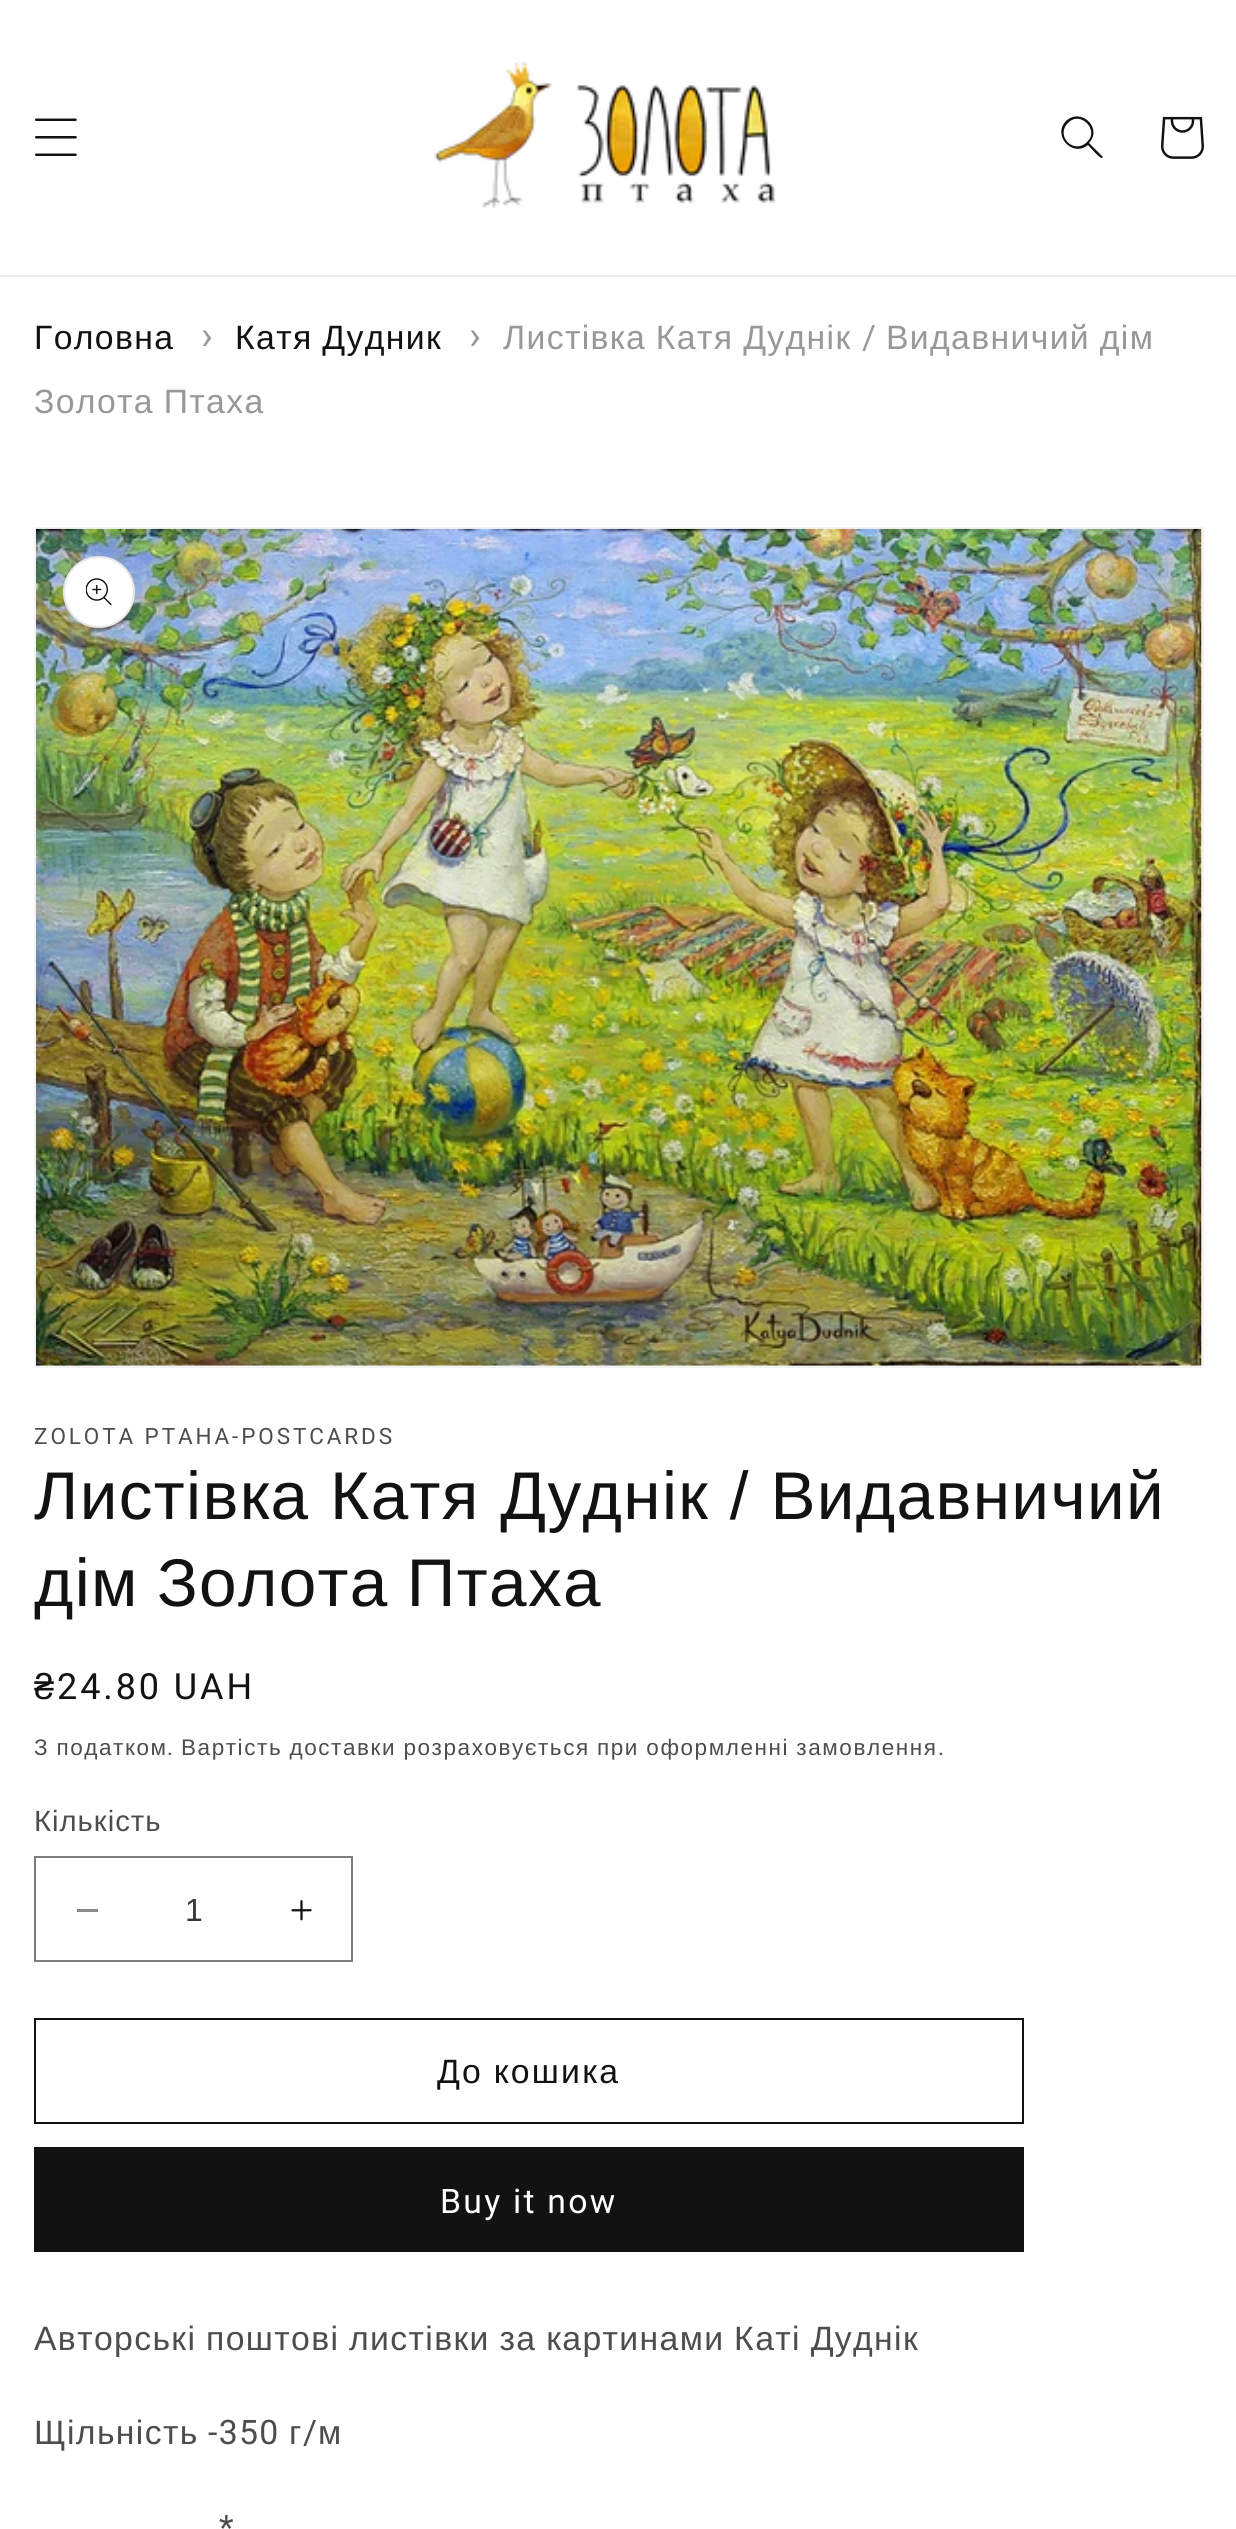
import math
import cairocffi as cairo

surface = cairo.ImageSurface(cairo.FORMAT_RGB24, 1236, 2529)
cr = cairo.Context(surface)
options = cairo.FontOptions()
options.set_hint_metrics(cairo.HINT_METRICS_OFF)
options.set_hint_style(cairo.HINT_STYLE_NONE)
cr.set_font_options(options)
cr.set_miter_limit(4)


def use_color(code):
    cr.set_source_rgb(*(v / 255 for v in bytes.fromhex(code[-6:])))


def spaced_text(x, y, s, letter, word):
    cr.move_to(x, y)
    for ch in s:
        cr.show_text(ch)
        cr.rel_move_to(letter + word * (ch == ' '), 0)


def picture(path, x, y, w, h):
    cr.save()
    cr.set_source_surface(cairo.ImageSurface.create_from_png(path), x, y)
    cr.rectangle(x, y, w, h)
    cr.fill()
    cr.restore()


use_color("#ffffff")
cr.paint()
use_color("#ececec")
cr.rectangle(0, 275, 1236, 2)
cr.fill()
picture("img1.png", 35, 118, 42, 38)
picture("img2.png", 434, 60, 343, 148)
use_color("#121212")
cr.set_fill_rule(cairo.FILL_RULE_EVEN_ODD)
cr.new_path()
cr.move_to(1087, 142)
cr.curve_to(1074, 155, 1055, 136, 1068, 123)
cr.curve_to(1080, 110, 1100, 130, 1087, 142)
cr.close_path()
cr.move_to(1088, 145)
cr.curve_to(1072, 158, 1052, 135, 1066, 121)
cr.curve_to(1081, 107, 1103, 128, 1089, 143)
cr.line_to(1103, 157)
cr.line_to(1102, 158)
cr.curve_to(1100, 159, 1090, 147, 1088, 145)
cr.close_path()
cr.fill()
picture("img3.png", 1161, 116, 43, 43)
cr.select_font_face("Liberation Sans")
cr.set_font_size(33.75)
spaced_text(34, 349, "Головна", 1.35, 0)
cr.select_font_face("Roboto")
cr.set_font_size(40)
use_color("#989898")
spaced_text(201, 349, "›", 1.35, 0)
cr.select_font_face("Liberation Sans")
cr.set_font_size(33.75)
use_color("#121212")
spaced_text(235, 349, "Катя Дудник", 1.35, -1)
cr.select_font_face("Roboto")
cr.set_font_size(40)
use_color("#989898")
spaced_text(469, 349, "›", 1.35, 0)
cr.select_font_face("Liberation Sans")
cr.set_font_size(33.75)
spaced_text(503, 349, "Листівка Катя Дуднік", 1.35, -1)
cr.select_font_face("Roboto")
spaced_text(862, 349, "/", 1.35, 0)
cr.select_font_face("Liberation Sans")
spaced_text(886, 349, "Видавничий дім", 1.35, -1)
spaced_text(34, 413, "Золота Птаха", 1.35, -1)
cr.rectangle(35, 528, 1168, 839)
use_color("#f3f3f3")
cr.stroke()
picture("img4.png", 36, 528, 1166, 838)
use_color("#ffffff")
cr.arc(99, 592, 36, 0, 2 * math.pi)
cr.fill()
cr.arc(99, 592, 35, 0, 2 * math.pi)
cr.set_source_rgba(0.071, 0.071, 0.071, 0.1)
cr.stroke()
picture("img5.png", 86, 578, 26, 28)
cr.select_font_face("Roboto")
cr.set_font_size(22.5)
use_color("#4d4d4d")
spaced_text(34, 1444, "ZOLOTA PTAHA-POSTCARDS", 2.9, 0)
cr.select_font_face("Liberation Sans")
cr.set_font_size(67.5)
use_color("#121212")
spaced_text(34, 1519, "Листівка Катя Дуднік / Видавничий", 1.35, 0.5)
spaced_text(34, 1606, "дім Золота Птаха", 1.35, -2)
cr.set_font_size(36)
spaced_text(34, 1699, "₴", 2.9, 0)
cr.select_font_face("Roboto")
spaced_text(57, 1699, "24.80 UAH", 2.9, 0)
cr.select_font_face("Liberation Sans")
cr.set_font_size(22.5)
use_color("#4d4d4d")
spaced_text(34, 1755, "З податком", 1.57, -0.5)
cr.select_font_face("Roboto")
spaced_text(167, 1755, ".", 1.57, 0)
cr.select_font_face("Liberation Sans")
spaced_text(181, 1755, "Вартість доставки розраховується при оформленні замовлення", 1.57, -0.5)
cr.select_font_face("Roboto")
spaced_text(938, 1755, ".", 1.57, 0)
cr.select_font_face("Liberation Sans")
cr.set_font_size(29.25)
spaced_text(34, 1831, "Кількість", 1, 0)
use_color("#898989")
cr.rectangle(77, 1909, 21, 3)
cr.fill()
picture("img6.png", 291, 1900, 21, 21)
cr.rectangle(35, 1857, 317, 104)
use_color("#7d7d7d")
cr.stroke()
cr.set_font_size(32)
use_color("#363636")
cr.move_to(185, 1921)
cr.show_text("1")
cr.rectangle(35, 2019, 988, 104)
use_color("#121212")
cr.stroke()
cr.set_font_size(33.75)
spaced_text(437, 2083, "До кошика", 2.25, -1)
cr.rectangle(34, 2147, 990, 105)
cr.fill()
cr.select_font_face("Roboto")
use_color("#ffffff")
spaced_text(440, 2213, "Buy it now", 2.25, 0)
cr.select_font_face("Liberation Sans")
use_color("#4d4d4d")
spaced_text(34, 2350, "Авторські поштові листівки за картинами Каті Дуднік", 1.35, -1)
spaced_text(34, 2444, "Щільність", 1.35, 0)
cr.select_font_face("Roboto")
spaced_text(208, 2444, "-350", 1.35, 0)
cr.select_font_face("Liberation Sans")
spaced_text(289, 2444, "г", 1.35, 0)
cr.select_font_face("Roboto")
spaced_text(303, 2444, "/", 1.35, 0)
cr.select_font_face("Liberation Sans")
spaced_text(318, 2444, "м", 1.35, 0)
cr.select_font_face("Roboto")
spaced_text(219, 2539, "*", 1.35, 0)
surface.write_to_png("result.png")
